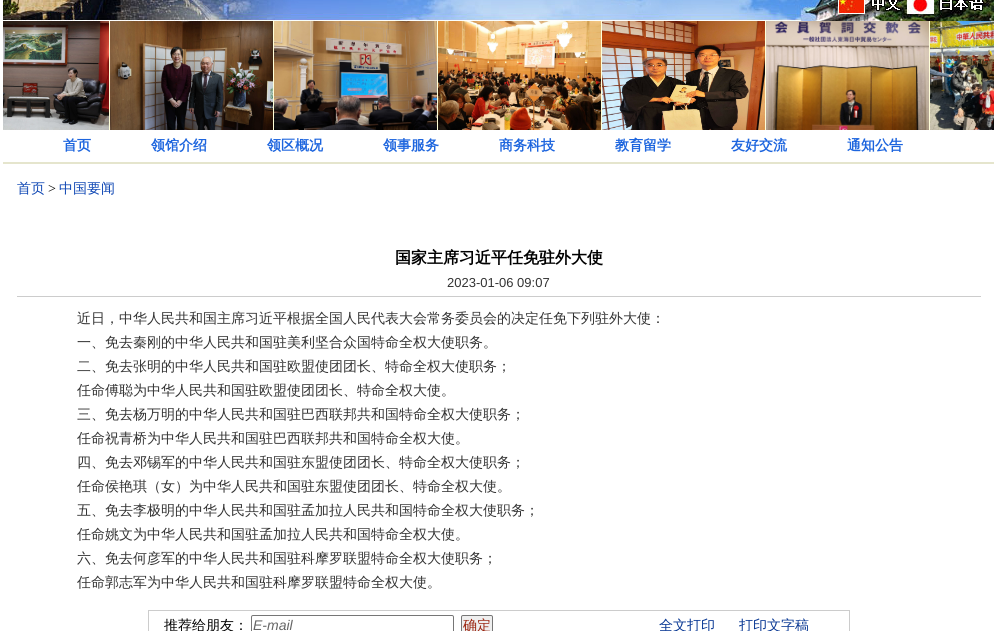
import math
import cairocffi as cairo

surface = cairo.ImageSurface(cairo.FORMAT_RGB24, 997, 631)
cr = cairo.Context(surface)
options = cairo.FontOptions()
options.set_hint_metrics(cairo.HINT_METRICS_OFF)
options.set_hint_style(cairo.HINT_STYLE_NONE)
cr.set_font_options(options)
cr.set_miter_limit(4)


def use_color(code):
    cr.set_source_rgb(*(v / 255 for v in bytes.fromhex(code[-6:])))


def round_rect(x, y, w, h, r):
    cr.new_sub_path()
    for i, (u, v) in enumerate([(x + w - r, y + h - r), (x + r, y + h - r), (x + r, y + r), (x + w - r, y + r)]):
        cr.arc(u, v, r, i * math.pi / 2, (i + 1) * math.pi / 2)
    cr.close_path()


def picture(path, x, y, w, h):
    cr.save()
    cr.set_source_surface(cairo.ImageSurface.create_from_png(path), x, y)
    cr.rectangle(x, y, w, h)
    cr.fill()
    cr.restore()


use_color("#ffffff")
cr.paint()
picture("img1.png", 3, 0, 829, 21)
picture("img2.png", 832, 0, 70, 21)
picture("img3.png", 902, 0, 92, 21)
picture("img4.png", 3, 21, 991, 109)
use_color("#e5e5cd")
cr.rectangle(3, 162, 991, 2)
cr.fill()
cr.select_font_face("WenQuanYi Zen Hei", cairo.FONT_SLANT_NORMAL, cairo.FONT_WEIGHT_BOLD)
cr.set_font_size(14)
use_color("#1d65de")
cr.move_to(63, 150)
cr.show_text("首页")
cr.move_to(151, 150)
cr.show_text("领馆介绍")
cr.move_to(267, 150)
cr.show_text("领区概况")
cr.move_to(383, 150)
cr.show_text("领事服务")
cr.move_to(499, 150)
cr.show_text("商务科技")
cr.move_to(615, 150)
cr.show_text("教育留学")
cr.move_to(731, 150)
cr.show_text("友好交流")
cr.move_to(847, 150)
cr.show_text("通知公告")
cr.select_font_face("WenQuanYi Zen Hei Medium")
use_color("#0f47b4")
cr.move_to(17, 193)
cr.show_text("首页")
cr.select_font_face("Liberation Serif")
use_color("#000000")
cr.move_to(48, 193)
cr.show_text(">")
cr.select_font_face("WenQuanYi Zen Hei Medium")
use_color("#0f47b4")
cr.move_to(59, 193)
cr.show_text("中国要闻")
cr.select_font_face("WenQuanYi Zen Hei", cairo.FONT_SLANT_NORMAL, cairo.FONT_WEIGHT_BOLD)
cr.set_font_size(16)
use_color("#000000")
cr.move_to(395, 263)
cr.show_text("国家主席习近平任免驻外大使")
cr.select_font_face("Liberation Sans")
cr.set_font_size(13)
use_color("#333333")
cr.move_to(447, 287)
cr.show_text("2023-01-06 09:07")
use_color("#cccccc")
cr.rectangle(17, 296, 964, 1)
cr.fill()
cr.select_font_face("WenQuanYi Zen Hei Medium")
cr.set_font_size(14)
use_color("#333333")
cr.move_to(77, 323)
cr.show_text("近日，中华人民共和国主席习近平根据全国人民代表大会常务委员会的决定任免下列驻外大使：")
cr.move_to(77, 347)
cr.show_text("一、免去秦刚的中华人民共和国驻美利坚合众国特命全权大使职务。")
cr.move_to(77, 371)
cr.show_text("二、免去张明的中华人民共和国驻欧盟使团团长、特命全权大使职务；")
cr.move_to(77, 395)
cr.show_text("任命傅聪为中华人民共和国驻欧盟使团团长、特命全权大使。")
cr.move_to(77, 419)
cr.show_text("三、免去杨万明的中华人民共和国驻巴西联邦共和国特命全权大使职务；")
cr.move_to(77, 443)
cr.show_text("任命祝青桥为中华人民共和国驻巴西联邦共和国特命全权大使。")
cr.move_to(77, 467)
cr.show_text("四、免去邓锡军的中华人民共和国驻东盟使团团长、特命全权大使职务；")
cr.move_to(77, 491)
cr.show_text("任命侯艳琪（女）为中华人民共和国驻东盟使团团长、特命全权大使。")
cr.move_to(77, 515)
cr.show_text("五、免去李极明的中华人民共和国驻孟加拉人民共和国特命全权大使职务；")
cr.move_to(77, 539)
cr.show_text("任命姚文为中华人民共和国驻孟加拉人民共和国特命全权大使。")
cr.move_to(77, 563)
cr.show_text("六、免去何彦军的中华人民共和国驻科摩罗联盟特命全权大使职务；")
cr.move_to(77, 587)
cr.show_text("任命郭志军为中华人民共和国驻科摩罗联盟特命全权大使。")
cr.rectangle(148.5, 610.5, 701, 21)
use_color("#cccccc")
cr.set_line_width(1)
cr.stroke()
use_color("#000000")
cr.move_to(164, 630)
cr.show_text("推荐给朋友：")
round_rect(251.5, 615.5, 202, 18, 1.5)
use_color("#767676")
cr.stroke()
cr.select_font_face("Liberation Sans", cairo.FONT_SLANT_ITALIC)
use_color("#666666")
cr.move_to(253, 630)
cr.show_text("E-mail")
use_color("#efefef")
round_rect(461.5, 615.5, 31, 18, 1.5)
cr.fill_preserve()
use_color("#767676")
cr.stroke()
cr.select_font_face("WenQuanYi Zen Hei Medium")
use_color("#9a230e")
cr.move_to(463, 630)
cr.show_text("确定")
use_color("#083793")
cr.move_to(659, 630)
cr.show_text("全文打印")
cr.move_to(739, 630)
cr.show_text("打印文字稿")
surface.write_to_png("result.png")
